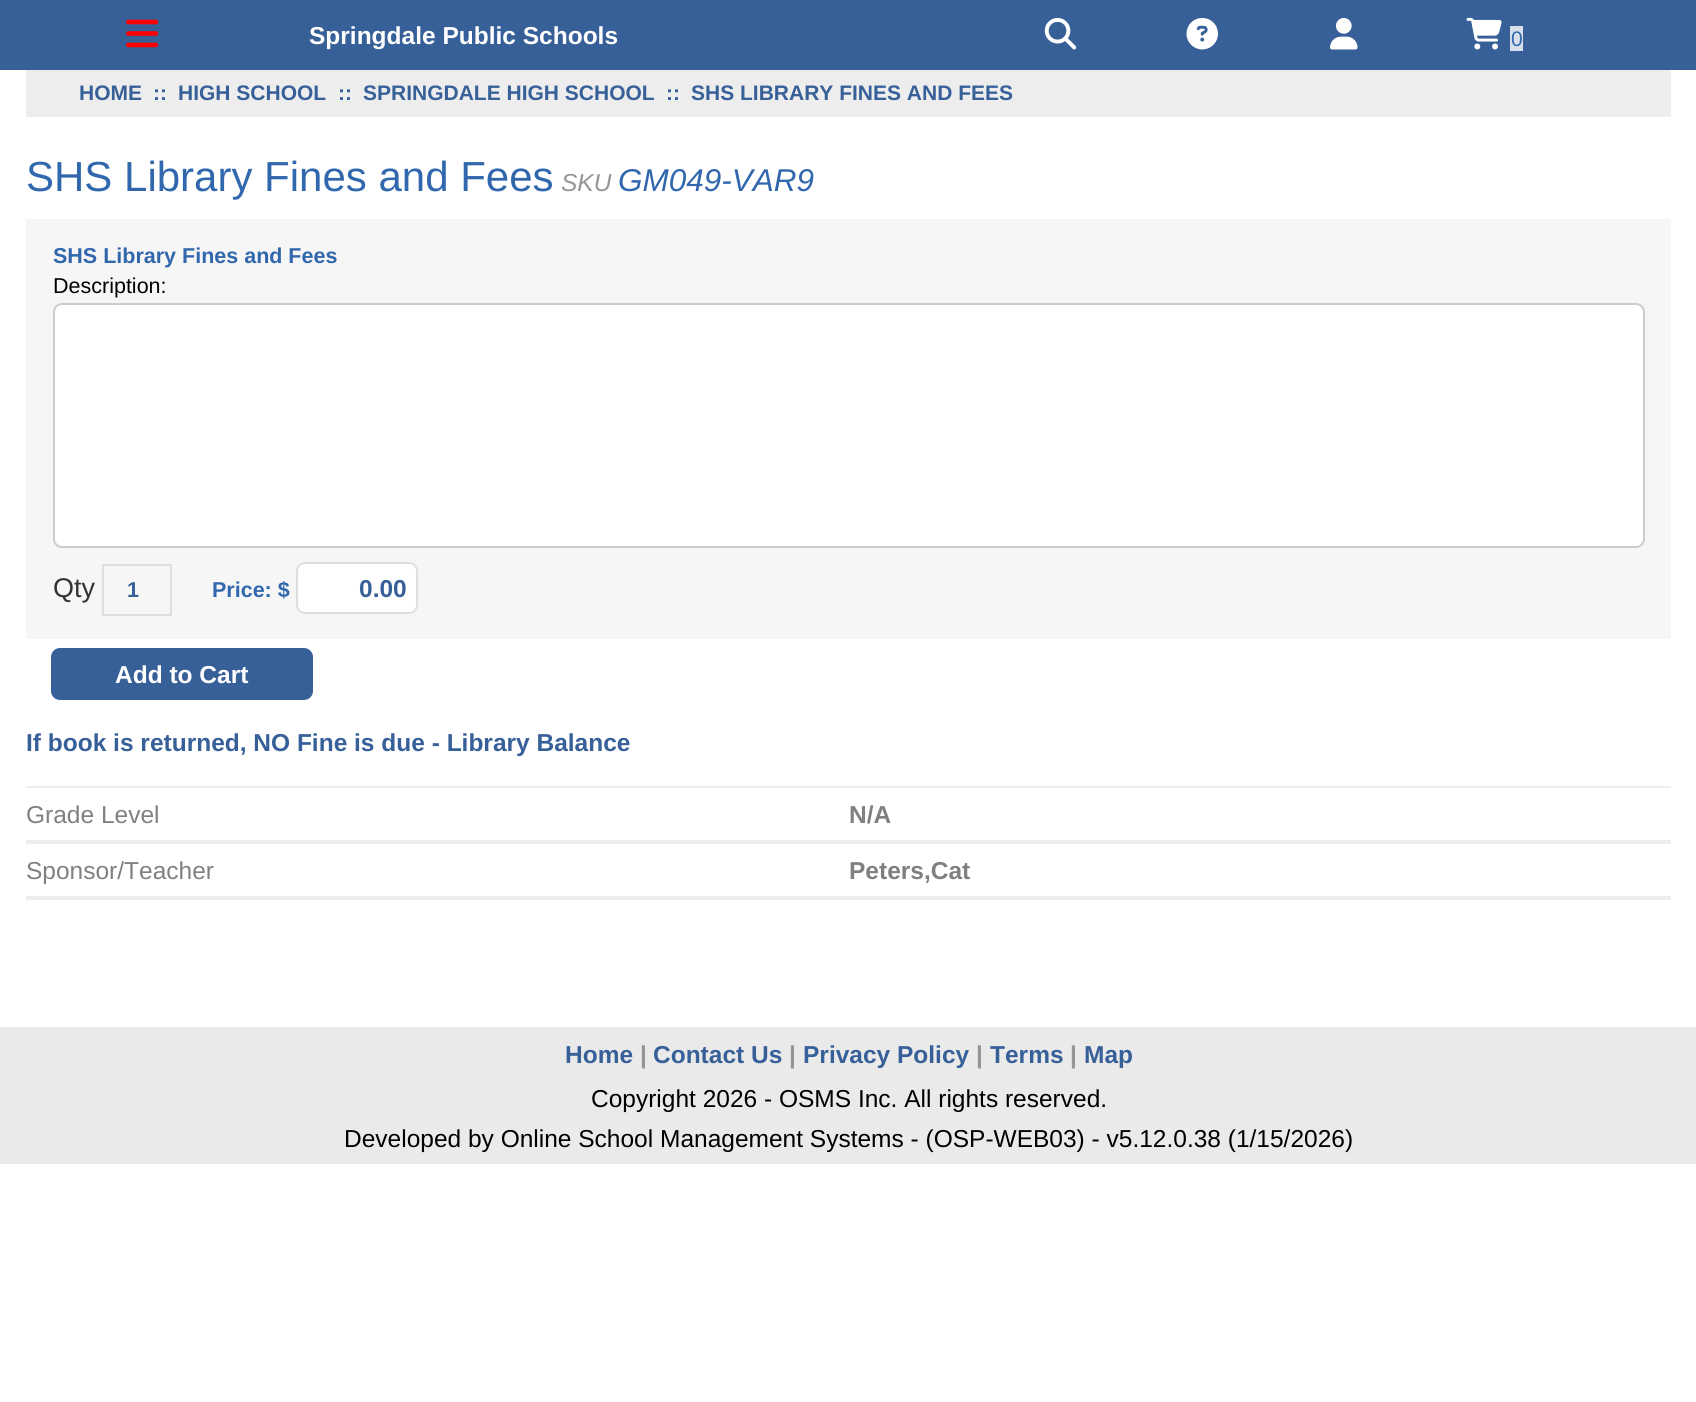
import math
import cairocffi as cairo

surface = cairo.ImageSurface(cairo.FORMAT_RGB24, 1696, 1402)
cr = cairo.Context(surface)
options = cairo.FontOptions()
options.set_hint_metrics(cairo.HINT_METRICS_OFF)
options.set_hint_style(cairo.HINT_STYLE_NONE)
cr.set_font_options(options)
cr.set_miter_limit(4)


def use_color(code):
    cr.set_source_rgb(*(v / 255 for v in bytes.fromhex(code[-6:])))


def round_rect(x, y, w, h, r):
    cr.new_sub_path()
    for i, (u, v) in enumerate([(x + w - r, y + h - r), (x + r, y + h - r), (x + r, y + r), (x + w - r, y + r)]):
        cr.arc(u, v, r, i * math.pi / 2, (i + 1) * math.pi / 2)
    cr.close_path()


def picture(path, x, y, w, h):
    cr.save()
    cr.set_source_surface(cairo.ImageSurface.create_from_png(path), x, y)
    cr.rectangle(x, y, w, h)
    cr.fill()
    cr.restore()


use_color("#ffffff")
cr.paint()
use_color("#376099")
cr.rectangle(0, 0, 1696, 70)
cr.fill()
picture("img1.png", 126, 19, 33, 29)
cr.select_font_face("Liberation Sans", cairo.FONT_SLANT_NORMAL, cairo.FONT_WEIGHT_BOLD)
cr.set_font_size(24.5)
use_color("#ffffff")
cr.move_to(309, 44)
cr.show_text("Springdale Public Schools")
picture("img2.png", 1044, 17, 33, 33)
picture("img3.png", 1186, 17, 32, 33)
picture("img4.png", 1330, 17, 28, 33)
picture("img5.png", 1466, 17, 36, 33)
use_color("#d7dfea")
cr.rectangle(1510, 26, 13, 25)
cr.fill()
cr.select_font_face("Liberation Sans")
cr.set_font_size(21)
use_color("#3167ad")
cr.move_to(1511, 46)
cr.show_text("0")
use_color("#ededed")
cr.rectangle(26, 70, 1645, 47)
cr.fill()
cr.select_font_face("Liberation Sans", cairo.FONT_SLANT_NORMAL, cairo.FONT_WEIGHT_BOLD)
use_color("#376099")
cr.move_to(79, 100)
cr.show_text("HOME")
cr.move_to(153, 100)
cr.show_text("::")
cr.move_to(178, 100)
cr.show_text("HIGH SCHOOL")
cr.move_to(338, 100)
cr.show_text("::")
cr.move_to(363, 100)
cr.show_text("SPRINGDALE HIGH SCHOOL")
cr.move_to(666, 100)
cr.show_text("::")
cr.move_to(691, 100)
cr.show_text("SHS LIBRARY FINES AND FEES")
cr.select_font_face("Liberation Sans")
cr.set_font_size(42)
use_color("#3167ad")
cr.move_to(26, 191)
cr.show_text("SHS Library Fines and Fees")
cr.select_font_face("Liberation Sans", cairo.FONT_SLANT_ITALIC)
cr.set_font_size(24.5)
use_color("#959595")
cr.move_to(561, 191)
cr.show_text("SKU")
cr.set_font_size(31.5)
use_color("#3167ad")
cr.move_to(618, 191)
cr.show_text("GM049-VAR9")
use_color("#f6f6f6")
cr.rectangle(26, 219, 1645, 420)
cr.fill()
cr.select_font_face("Liberation Sans", cairo.FONT_SLANT_NORMAL, cairo.FONT_WEIGHT_BOLD)
cr.set_font_size(21.5)
use_color("#3167ad")
cr.move_to(53, 263)
cr.show_text("SHS Library Fines and Fees")
cr.select_font_face("Liberation Sans")
use_color("#000000")
cr.move_to(53, 293)
cr.show_text("Description:")
use_color("#ffffff")
round_rect(54, 304, 1590, 243, 8)
cr.fill_preserve()
use_color("#cccccc")
cr.stroke()
cr.set_font_size(27)
use_color("#333333")
cr.move_to(53, 597)
cr.show_text("Qty")
cr.rectangle(103, 565, 68, 50)
use_color("#dedede")
cr.stroke()
cr.select_font_face("Liberation Sans", cairo.FONT_SLANT_NORMAL, cairo.FONT_WEIGHT_BOLD)
cr.set_font_size(21.5)
use_color("#376099")
cr.move_to(127, 597)
cr.show_text("1")
use_color("#3167ad")
cr.move_to(212, 597)
cr.show_text("Price: $")
use_color("#ffffff")
round_rect(297, 563, 120, 50, 8)
cr.fill_preserve()
use_color("#dedede")
cr.stroke()
cr.set_font_size(24.5)
use_color("#376099")
cr.move_to(359, 597)
cr.show_text("0.00")
round_rect(51, 648, 262, 52, 9)
cr.fill()
use_color("#ffffff")
cr.move_to(115, 683)
cr.show_text("Add to Cart")
use_color("#376099")
cr.move_to(26, 751)
cr.show_text("If book is returned, NO Fine is due - Library Balance")
use_color("#eeeeee")
cr.rectangle(26, 786, 1645, 2)
cr.fill()
use_color("#ededed")
cr.rectangle(26, 840, 1645, 4)
cr.fill()
cr.select_font_face("Liberation Sans")
use_color("#808080")
cr.move_to(26, 823)
cr.show_text("Grade Level")
cr.select_font_face("Liberation Sans", cairo.FONT_SLANT_NORMAL, cairo.FONT_WEIGHT_BOLD)
cr.move_to(849, 823)
cr.show_text("N/A")
use_color("#ededed")
cr.rectangle(26, 896, 1645, 4)
cr.fill()
cr.select_font_face("Liberation Sans")
use_color("#808080")
cr.move_to(26, 879)
cr.show_text("Sponsor/Teacher")
cr.select_font_face("Liberation Sans", cairo.FONT_SLANT_NORMAL, cairo.FONT_WEIGHT_BOLD)
cr.move_to(849, 879)
cr.show_text("Peters,Cat")
use_color("#eaeaea")
cr.rectangle(0, 1027, 1696, 137)
cr.fill()
use_color("#376099")
cr.move_to(565, 1063)
cr.show_text("Home")
use_color("#959595")
cr.move_to(640, 1063)
cr.show_text("|")
use_color("#376099")
cr.move_to(653, 1063)
cr.show_text("Contact Us")
use_color("#959595")
cr.move_to(789, 1063)
cr.show_text("|")
use_color("#376099")
cr.move_to(803, 1063)
cr.show_text("Privacy Policy")
use_color("#959595")
cr.move_to(976, 1063)
cr.show_text("|")
use_color("#376099")
cr.move_to(990, 1063)
cr.show_text("Terms")
use_color("#959595")
cr.move_to(1070, 1063)
cr.show_text("|")
use_color("#376099")
cr.move_to(1084, 1063)
cr.show_text("Map")
cr.select_font_face("Liberation Sans")
use_color("#000000")
cr.move_to(591, 1107)
cr.show_text("Copyright 2026 - OSMS Inc. All rights reserved.")
cr.move_to(344, 1147)
cr.show_text("Developed by Online School Management Systems - (OSP-WEB03) - v5.12.0.38 (1/15/2026)")
surface.write_to_png("result.png")
